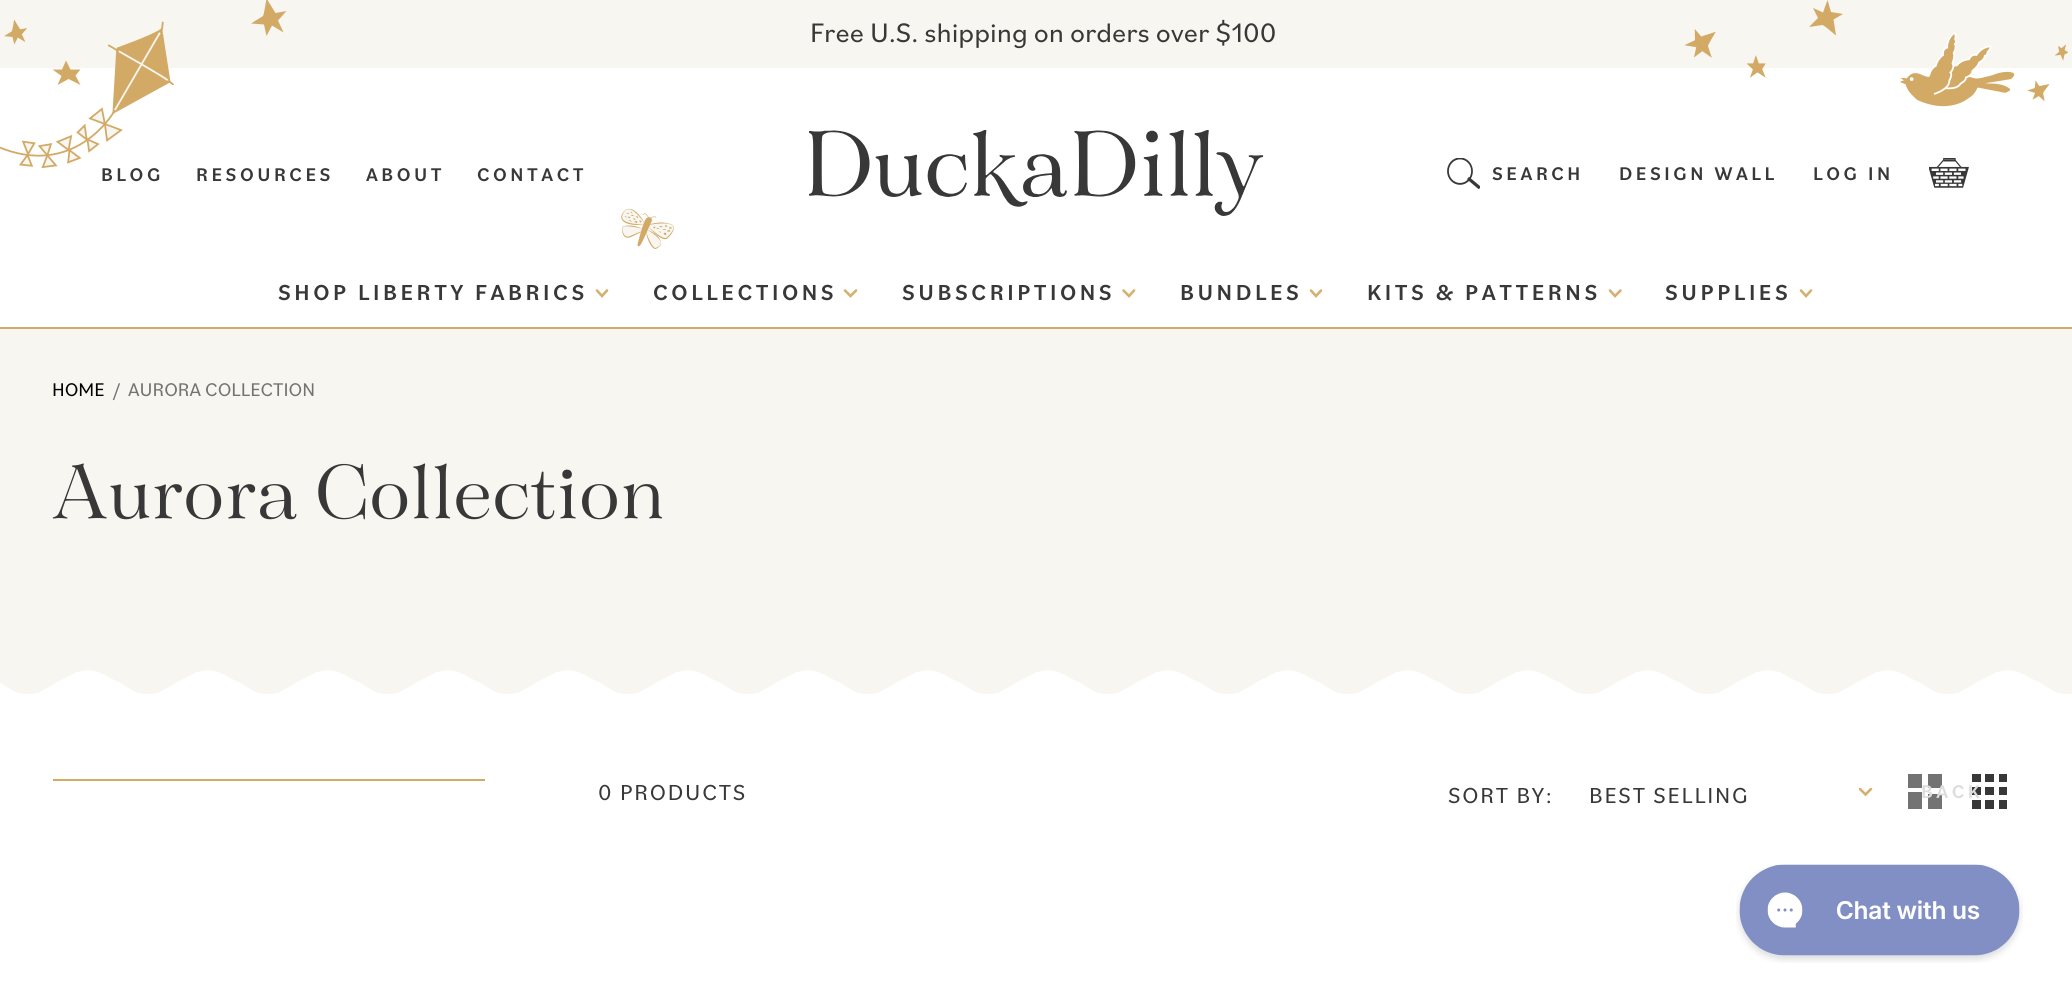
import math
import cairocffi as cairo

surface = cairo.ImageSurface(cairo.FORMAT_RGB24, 2072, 1002)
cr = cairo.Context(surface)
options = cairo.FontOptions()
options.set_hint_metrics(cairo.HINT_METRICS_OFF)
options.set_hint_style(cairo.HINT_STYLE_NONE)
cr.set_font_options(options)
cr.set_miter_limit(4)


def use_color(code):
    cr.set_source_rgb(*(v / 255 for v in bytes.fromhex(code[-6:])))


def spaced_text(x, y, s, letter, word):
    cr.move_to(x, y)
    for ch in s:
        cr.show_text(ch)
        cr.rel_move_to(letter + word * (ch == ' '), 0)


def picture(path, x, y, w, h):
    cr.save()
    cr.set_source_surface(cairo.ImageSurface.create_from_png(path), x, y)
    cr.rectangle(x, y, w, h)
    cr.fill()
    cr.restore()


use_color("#ffffff")
cr.paint()
use_color("#f8f6f0")
cr.rectangle(0, 0, 2072, 68)
cr.fill()
picture("img1.png", 4, 19, 23, 26)
use_color("#d2aa66")
cr.new_path()
cr.move_to(278, 20.5)
cr.line_to(283.5, 32.5)
cr.line_to(272, 25.5)
cr.line_to(266.5, 36)
cr.line_to(264, 24.5)
cr.line_to(251, 23.5)
cr.line_to(263, 16)
cr.curve_to(264, 14.5, 266, 1.5, 266.5, -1.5)
cr.line_to(275.5, 13)
cr.line_to(286.5, 11)
cr.close_path()
cr.fill()
cr.new_path()
cr.move_to(62, 69.5)
cr.line_to(66, 60.5)
cr.line_to(70.5, 69.5)
cr.line_to(80.5, 69.5)
cr.line_to(75.5, 75.5)
cr.line_to(80.5, 85)
cr.line_to(68.5, 79)
cr.line_to(57.5, 85)
cr.line_to(61.5, 76)
cr.line_to(52.5, 69.5)
cr.close_path()
cr.fill()
picture("img2.png", 0, 21, 174, 148)
cr.new_path()
cr.move_to(1831, 12)
cr.line_to(1827.5, 0)
cr.line_to(1823, 12.5)
cr.line_to(1813, 8)
cr.line_to(1818, 18)
cr.line_to(1809, 27)
cr.line_to(1822.5, 25)
cr.curve_to(1824.5, 25.5, 1834, 34, 1836, 35.5)
cr.line_to(1833.5, 19.5)
cr.line_to(1843, 14)
cr.close_path()
cr.fill()
picture("img3.png", 1684, 29, 32, 29)
picture("img4.png", 1900, 32, 115, 75)
picture("img5.png", 2054, 44, 15, 17)
picture("img6.png", 1747, 55, 19, 23)
picture("img7.png", 2027, 80, 23, 22)
picture("img8.png", 621, 208, 53, 41)
cr.select_font_face("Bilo")
cr.set_font_size(28)
use_color("#383838")
cr.move_to(810, 42)
cr.show_text("Free U.S. shipping on orders over $100")
use_color("#d1aa66")
cr.rectangle(0, 327, 2072, 2)
cr.fill()
cr.select_font_face("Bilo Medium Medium")
cr.set_font_size(19.25)
use_color("#383838")
spaced_text(101, 181, "BLOG", 3.5, 0)
spaced_text(196, 181, "RESOURCES", 3.5, 0)
spaced_text(366, 181, "ABOUT", 3.5, 0)
spaced_text(477, 181, "CONTACT", 3.5, 0)
picture("img9.png", 809, 130, 455, 86)
picture("img10.png", 1447, 158, 33, 31)
spaced_text(1492, 180, "SEARCH", 3.5, 0)
spaced_text(1619, 180, "DESIGN WALL", 3.5, 0)
spaced_text(1813, 180, "LOG IN", 3.5, 0)
picture("img11.png", 1929, 158, 40, 30)
cr.set_font_size(22.75)
spaced_text(278, 300, "SHOP LIBERTY FABRICS", 3.5, 0)
cr.new_path()
cr.move_to(597, 290.5)
cr.line_to(602, 296)
cr.line_to(607, 290.5)
use_color("#d5b06f")
cr.set_line_width(2.6)
cr.set_line_cap(cairo.LINE_CAP_ROUND)
cr.stroke()
use_color("#383838")
spaced_text(653, 300, "COLLECTIONS", 3.5, 0)
cr.new_path()
cr.move_to(845, 290.5)
cr.line_to(850.5, 296)
cr.line_to(856, 290.5)
use_color("#d5b06f")
cr.stroke()
use_color("#383838")
spaced_text(902, 300, "SUBSCRIPTIONS", 3.5, 0)
cr.new_path()
cr.move_to(1123.5, 290.5)
cr.line_to(1129, 296)
cr.line_to(1134, 290.5)
use_color("#d5b06f")
cr.stroke()
use_color("#383838")
spaced_text(1180, 300, "BUNDLES", 3.5, 0)
cr.new_path()
cr.move_to(1311, 290.5)
cr.line_to(1316, 296)
cr.line_to(1321, 290.5)
use_color("#d5b06f")
cr.stroke()
use_color("#383838")
spaced_text(1367, 300, "KITS & PATTERNS", 3.5, 0)
cr.new_path()
cr.move_to(1610, 290.5)
cr.line_to(1615, 296)
cr.line_to(1620.5, 290.5)
use_color("#d5b06f")
cr.stroke()
use_color("#383838")
spaced_text(1665, 300, "SUPPLIES", 3.5, 0)
cr.new_path()
cr.move_to(1801, 290.5)
cr.line_to(1806, 296)
cr.line_to(1811, 290.5)
use_color("#d5b06f")
cr.stroke()
use_color("#f8f6f0")
cr.rectangle(0, 329, 2072, 338)
cr.fill()
cr.select_font_face("Bilo")
cr.set_font_size(19.25)
use_color("#000000")
cr.move_to(52, 396)
cr.show_text("HOME")
use_color("#737373")
cr.move_to(113, 396)
cr.show_text("/")
cr.move_to(128, 396)
cr.show_text("AURORA COLLECTION")
cr.select_font_face("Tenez")
cr.set_font_size(84)
use_color("#383838")
cr.move_to(52, 518)
cr.show_text("Aurora Collection")
picture("img12.png", 0, 667, 2072, 27)
use_color("#d1aa66")
cr.rectangle(53, 779, 432, 2)
cr.fill()
cr.select_font_face("Bilo")
cr.set_font_size(22.75)
use_color("#383838")
spaced_text(598, 800, "0 PRODUCTS", 1.75, 0)
spaced_text(1448, 803, "SORT BY:", 1.75, 0)
spaced_text(1589, 803, "BEST SELLING", 1.75, 0)
cr.save()
cr.rectangle(1859, 788, 14, 10)
cr.clip()
cr.new_path()
cr.move_to(1860, 789)
cr.line_to(1865.5, 794.5)
cr.line_to(1871, 789)
use_color("#d5b06f")
cr.stroke()
cr.restore()
use_color("#737373")
cr.rectangle(1908, 774, 14, 14)
cr.fill()
cr.rectangle(1928, 774, 14, 14)
cr.fill()
cr.rectangle(1908, 792, 14, 17)
cr.fill()
cr.rectangle(1928, 794, 14, 15)
cr.fill()
picture("img13.png", 1972, 774, 35, 35)
cr.select_font_face("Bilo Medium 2 Medium")
cr.set_font_size(19.25)
use_color("#dcdcdc")
spaced_text(1921, 798, "BACK", 3.5, 0)
picture("img14.png", 1736, 864, 287, 99)
surface.write_to_png("result.png")
